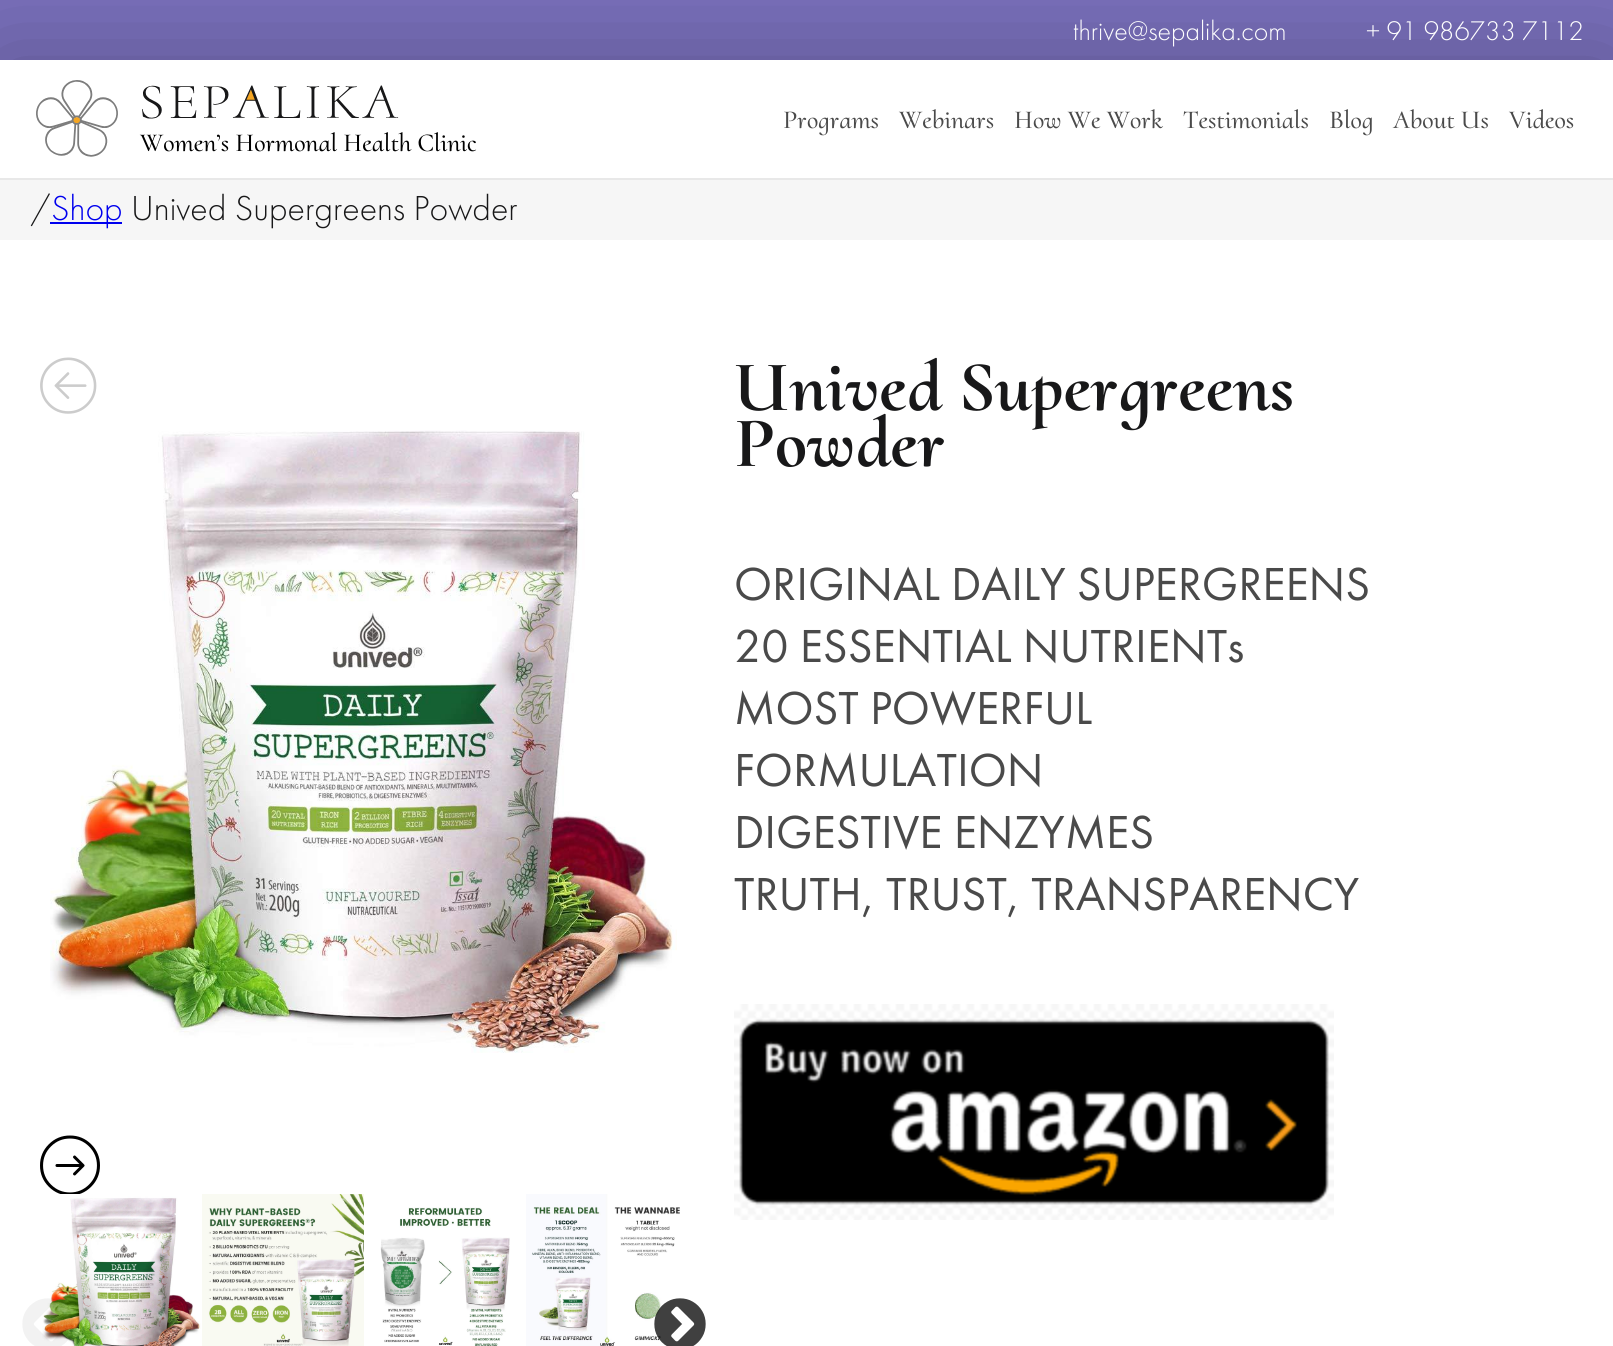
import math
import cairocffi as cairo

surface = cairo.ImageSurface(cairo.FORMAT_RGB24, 1613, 1346)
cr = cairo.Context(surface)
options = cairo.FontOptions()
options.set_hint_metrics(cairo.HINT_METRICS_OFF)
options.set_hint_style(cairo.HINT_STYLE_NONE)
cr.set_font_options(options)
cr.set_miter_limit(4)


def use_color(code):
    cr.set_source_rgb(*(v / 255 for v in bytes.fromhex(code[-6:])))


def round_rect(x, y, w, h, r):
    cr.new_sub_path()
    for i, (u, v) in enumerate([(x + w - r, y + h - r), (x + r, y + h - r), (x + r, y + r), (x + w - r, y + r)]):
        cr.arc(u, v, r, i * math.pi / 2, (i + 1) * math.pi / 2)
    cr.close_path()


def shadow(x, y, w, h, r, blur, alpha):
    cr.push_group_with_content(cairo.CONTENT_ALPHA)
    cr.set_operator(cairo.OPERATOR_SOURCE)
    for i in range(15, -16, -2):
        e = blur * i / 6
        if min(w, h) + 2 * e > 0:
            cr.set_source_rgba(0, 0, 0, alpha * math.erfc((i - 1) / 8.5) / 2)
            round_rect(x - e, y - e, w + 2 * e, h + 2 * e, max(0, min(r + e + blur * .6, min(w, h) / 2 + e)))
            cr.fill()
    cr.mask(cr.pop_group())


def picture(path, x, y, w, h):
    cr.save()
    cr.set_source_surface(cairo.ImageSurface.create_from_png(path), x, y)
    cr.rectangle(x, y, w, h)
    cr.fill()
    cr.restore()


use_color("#ffffff")
cr.paint()
use_color("#786eb9")
cr.rectangle(0, 0, 1613, 60)
cr.fill()
cr.save()
cr.rectangle(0, 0, 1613, 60)
cr.clip()
use_color("#000000")
shadow(0, 64, 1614, 120, 0, 50, 0.25)
cr.restore()
cr.select_font_face("Futura PT Light")
cr.set_font_size(28)
use_color("#ffffff")
cr.move_to(1073, 40)
cr.show_text("thrive@sepalika.com")
cr.move_to(1366, 40)
cr.show_text("+ 91 986733 7112")
use_color("#e8e8e8")
cr.rectangle(0, 178, 1613, 2)
cr.fill()
cr.select_font_face("Cormorant Upright Medium")
cr.set_font_size(26)
use_color("#4a4a4a")
cr.move_to(783, 128)
cr.show_text("Programs")
cr.move_to(899, 128)
cr.show_text("Webinars")
cr.move_to(1014, 128)
cr.show_text("How We Work")
cr.move_to(1183, 128)
cr.show_text("Testimonials")
cr.move_to(1329, 128)
cr.show_text("Blog")
cr.move_to(1393, 128)
cr.show_text("About Us")
cr.move_to(1509, 128)
cr.show_text("Videos")
picture("img1.png", 36, 80, 363, 77)
use_color("#000000")
cr.move_to(140, 151)
cr.show_text("Women’s Hormonal Health Clinic")
use_color("#f6f6f6")
cr.rectangle(0, 180, 1613, 60)
cr.fill()
cr.select_font_face("Futura PT Light")
cr.set_font_size(36)
use_color("#181819")
cr.move_to(30, 220)
cr.show_text("/")
use_color("#0000ee")
cr.rectangle(50, 222, 72, 2)
cr.fill()
cr.move_to(51, 220)
cr.show_text("Shop")
use_color("#181819")
cr.move_to(131, 220)
cr.show_text("Unived Supergreens Powder")
use_color("#ffffff")
cr.rectangle(0, 240, 1613, 31)
cr.fill()
picture("img2.png", 40, 357, 57, 57)
picture("img3.png", 50, 430, 627, 623)
picture("img4.png", 40, 1135, 60, 59)
picture("img5.png", 42, 1194, 159, 152)
picture("img6.png", 202, 1194, 162, 152)
picture("img7.png", 380, 1207, 130, 139)
picture("img8.png", 526, 1194, 154, 152)
picture("img9.png", 22, 1298, 52, 48)
picture("img10.png", 654, 1298, 52, 48)
cr.select_font_face("Cormorant Upright", cairo.FONT_SLANT_NORMAL, cairo.FONT_WEIGHT_BOLD)
cr.set_font_size(72)
use_color("#181819")
cr.move_to(734, 410)
cr.show_text("Unived Supergreens")
cr.move_to(734, 466)
cr.show_text("Powder")
cr.select_font_face("Futura PT")
cr.set_font_size(48)
use_color("#4a4a4a")
cr.move_to(734, 600)
cr.show_text("ORIGINAL DAILY SUPERGREENS")
cr.move_to(734, 662)
cr.show_text("20 ESSENTIAL NUTRIENTs")
cr.move_to(734, 724)
cr.show_text("MOST POWERFUL")
cr.move_to(734, 786)
cr.show_text("FORMULATION")
cr.move_to(734, 848)
cr.show_text("DIGESTIVE ENZYMES")
cr.move_to(734, 910)
cr.show_text("TRUTH, TRUST, TRANSPARENCY")
picture("img11.png", 734, 1004, 600, 216)
surface.write_to_png("result.png")
